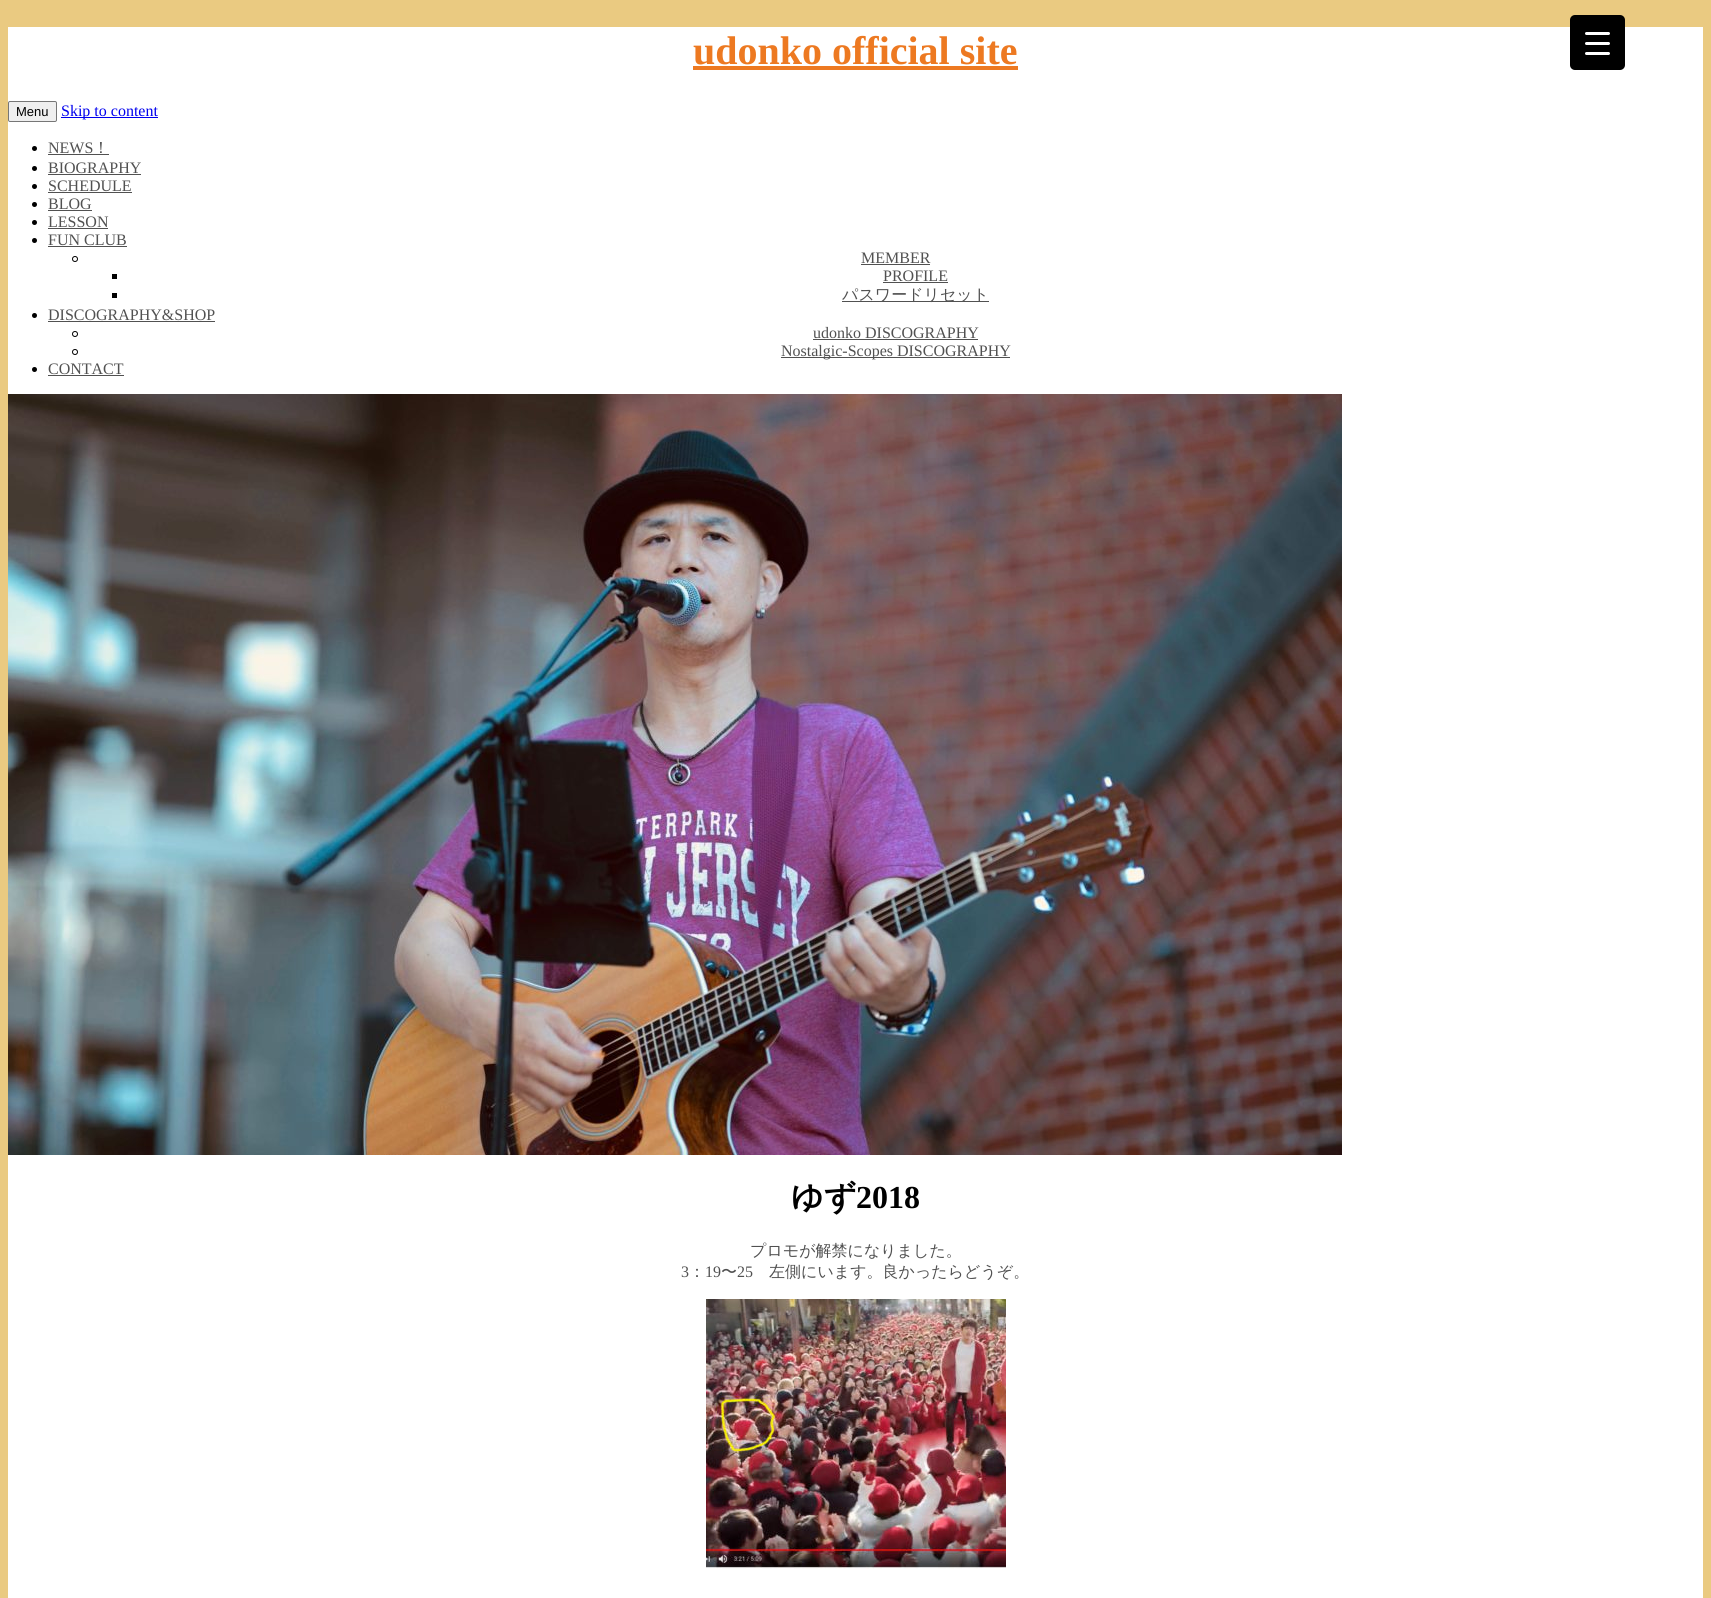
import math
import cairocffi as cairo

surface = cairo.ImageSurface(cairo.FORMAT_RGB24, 1711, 1598)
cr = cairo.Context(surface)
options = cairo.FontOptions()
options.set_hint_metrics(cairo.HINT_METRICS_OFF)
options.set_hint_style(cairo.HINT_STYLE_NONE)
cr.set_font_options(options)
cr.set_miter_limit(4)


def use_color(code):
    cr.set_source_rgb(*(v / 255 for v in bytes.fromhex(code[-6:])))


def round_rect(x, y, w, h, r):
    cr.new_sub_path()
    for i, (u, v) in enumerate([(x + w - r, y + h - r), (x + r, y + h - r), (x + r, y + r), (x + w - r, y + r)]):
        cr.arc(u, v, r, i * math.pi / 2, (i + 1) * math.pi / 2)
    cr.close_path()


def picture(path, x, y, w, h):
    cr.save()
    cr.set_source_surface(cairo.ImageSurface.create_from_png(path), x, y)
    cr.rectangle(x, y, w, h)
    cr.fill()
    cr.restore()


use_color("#eaca81")
cr.paint()
use_color("#ffffff")
cr.rectangle(8, 27, 1695, 1571)
cr.fill()
cr.select_font_face("Liberation Serif", cairo.FONT_SLANT_NORMAL, cairo.FONT_WEIGHT_BOLD)
cr.set_font_size(40)
use_color("#ed7921")
cr.move_to(693, 64)
cr.show_text("udonko official site")
cr.rectangle(693, 66, 325, 4)
cr.fill()
use_color("#efefef")
round_rect(8.5, 101.5, 48, 20, 1.5)
cr.fill_preserve()
use_color("#767676")
cr.set_line_width(1)
cr.stroke()
cr.select_font_face("Liberation Sans")
cr.set_font_size(13)
use_color("#000000")
cr.move_to(16, 116)
cr.show_text("Menu")
use_color("#0000ee")
cr.rectangle(61, 117, 97, 1)
cr.fill()
cr.select_font_face("Liberation Serif")
cr.set_font_size(16)
cr.move_to(61, 116)
cr.show_text("Skip to content")
use_color("#000000")
cr.new_path()
cr.arc(34.5, 148.5, 2.5, 0, 2 * math.pi)
cr.fill()
use_color("#515151")
cr.move_to(48, 153)
cr.show_text("NEWS")
cr.rectangle(48, 154, 61, 1)
cr.fill()
cr.select_font_face("WenQuanYi Zen Hei Medium")
cr.move_to(93, 153)
cr.show_text("！")
use_color("#000000")
cr.new_path()
cr.arc(34.5, 168.5, 2.5, 0, 2 * math.pi)
cr.fill()
cr.select_font_face("Liberation Serif")
use_color("#515151")
cr.move_to(48, 173)
cr.show_text("BIOGRAPHY")
cr.rectangle(48, 174, 93, 1)
cr.fill()
use_color("#000000")
cr.arc(34.5, 186.5, 2.5, 0, 2 * math.pi)
cr.fill()
use_color("#515151")
cr.move_to(48, 191)
cr.show_text("SCHEDULE")
cr.rectangle(48, 192, 84, 1)
cr.fill()
use_color("#000000")
cr.arc(34.5, 204.5, 2.5, 0, 2 * math.pi)
cr.fill()
use_color("#515151")
cr.move_to(48, 209)
cr.show_text("BLOG")
cr.rectangle(48, 210, 44, 1)
cr.fill()
use_color("#000000")
cr.arc(34.5, 222.5, 2.5, 0, 2 * math.pi)
cr.fill()
use_color("#515151")
cr.move_to(48, 227)
cr.show_text("LESSON")
cr.rectangle(48, 228, 60, 1)
cr.fill()
use_color("#000000")
cr.arc(34.5, 240.5, 2.5, 0, 2 * math.pi)
cr.fill()
use_color("#515151")
cr.move_to(48, 245)
cr.show_text("FUN CLUB")
cr.rectangle(48, 246, 79, 1)
cr.fill()
cr.arc(75, 259, 2.5, 0, 2 * math.pi)
use_color("#000000")
cr.stroke()
use_color("#515151")
cr.move_to(861, 263)
cr.show_text("MEMBER")
cr.rectangle(861, 264, 69, 1)
cr.fill()
use_color("#000000")
cr.rectangle(112, 274, 5, 5)
cr.fill()
use_color("#515151")
cr.move_to(883, 281)
cr.show_text("PROFILE")
cr.rectangle(883, 282, 65, 1)
cr.fill()
use_color("#000000")
cr.rectangle(112, 293, 5, 5)
cr.fill()
use_color("#515151")
cr.rectangle(842, 301, 147, 1)
cr.fill()
cr.select_font_face("WenQuanYi Zen Hei Medium")
cr.move_to(842, 300)
cr.show_text("パスワードリセット")
use_color("#000000")
cr.new_path()
cr.arc(34.5, 315.5, 2.5, 0, 2 * math.pi)
cr.fill()
cr.select_font_face("Liberation Serif")
use_color("#515151")
cr.move_to(48, 320)
cr.show_text("DISCOGRAPHY&SHOP")
cr.rectangle(48, 321, 167, 1)
cr.fill()
cr.arc(75, 334, 2.5, 0, 2 * math.pi)
use_color("#000000")
cr.stroke()
use_color("#515151")
cr.move_to(813, 338)
cr.show_text("udonko DISCOGRAPHY")
cr.rectangle(813, 339, 165, 1)
cr.fill()
cr.arc(75, 352, 2.5, 0, 2 * math.pi)
use_color("#000000")
cr.stroke()
use_color("#515151")
cr.rectangle(781, 357, 229, 1)
cr.fill()
cr.move_to(781, 356)
cr.show_text("Nostalgic-Scopes DISCOGRAPHY")
use_color("#000000")
cr.new_path()
cr.arc(34.5, 369.5, 2.5, 0, 2 * math.pi)
cr.fill()
use_color("#515151")
cr.move_to(48, 374)
cr.show_text("CONTACT")
cr.rectangle(48, 375, 76, 1)
cr.fill()
picture("img1.png", 8, 394, 1334, 761)
cr.select_font_face("WenQuanYi Zen Hei", cairo.FONT_SLANT_NORMAL, cairo.FONT_WEIGHT_BOLD)
cr.set_font_size(32)
use_color("#000000")
cr.move_to(791, 1208)
cr.show_text("ゆず")
cr.select_font_face("Liberation Serif", cairo.FONT_SLANT_NORMAL, cairo.FONT_WEIGHT_BOLD)
cr.move_to(856, 1208)
cr.show_text("2018")
cr.select_font_face("WenQuanYi Zen Hei Medium")
cr.set_font_size(16)
use_color("#515151")
cr.move_to(750, 1256)
cr.show_text("プロモが解禁になりました。")
cr.select_font_face("Liberation Serif")
cr.move_to(681, 1277)
cr.show_text("3")
cr.select_font_face("WenQuanYi Zen Hei Medium")
cr.move_to(689, 1277)
cr.show_text("：")
cr.select_font_face("Liberation Serif")
cr.move_to(705, 1277)
cr.show_text("19")
cr.select_font_face("WenQuanYi Zen Hei Medium")
cr.move_to(721, 1277)
cr.show_text("〜")
cr.select_font_face("Liberation Serif")
cr.move_to(737, 1277)
cr.show_text("25")
cr.select_font_face("WenQuanYi Zen Hei Medium")
cr.move_to(769, 1277)
cr.show_text("左側にいます。良かったらどうぞ。")
picture("img2.png", 706, 1299, 300, 270)
use_color("#000000")
round_rect(1570, 15, 55, 55, 5)
cr.fill()
use_color("#ffffff")
round_rect(1585, 42, 25, 3, 1.5)
cr.fill()
round_rect(1585, 32, 25, 3, 1.5)
cr.fill()
round_rect(1585, 52, 25, 3, 1.5)
cr.fill()
surface.write_to_png("result.png")
